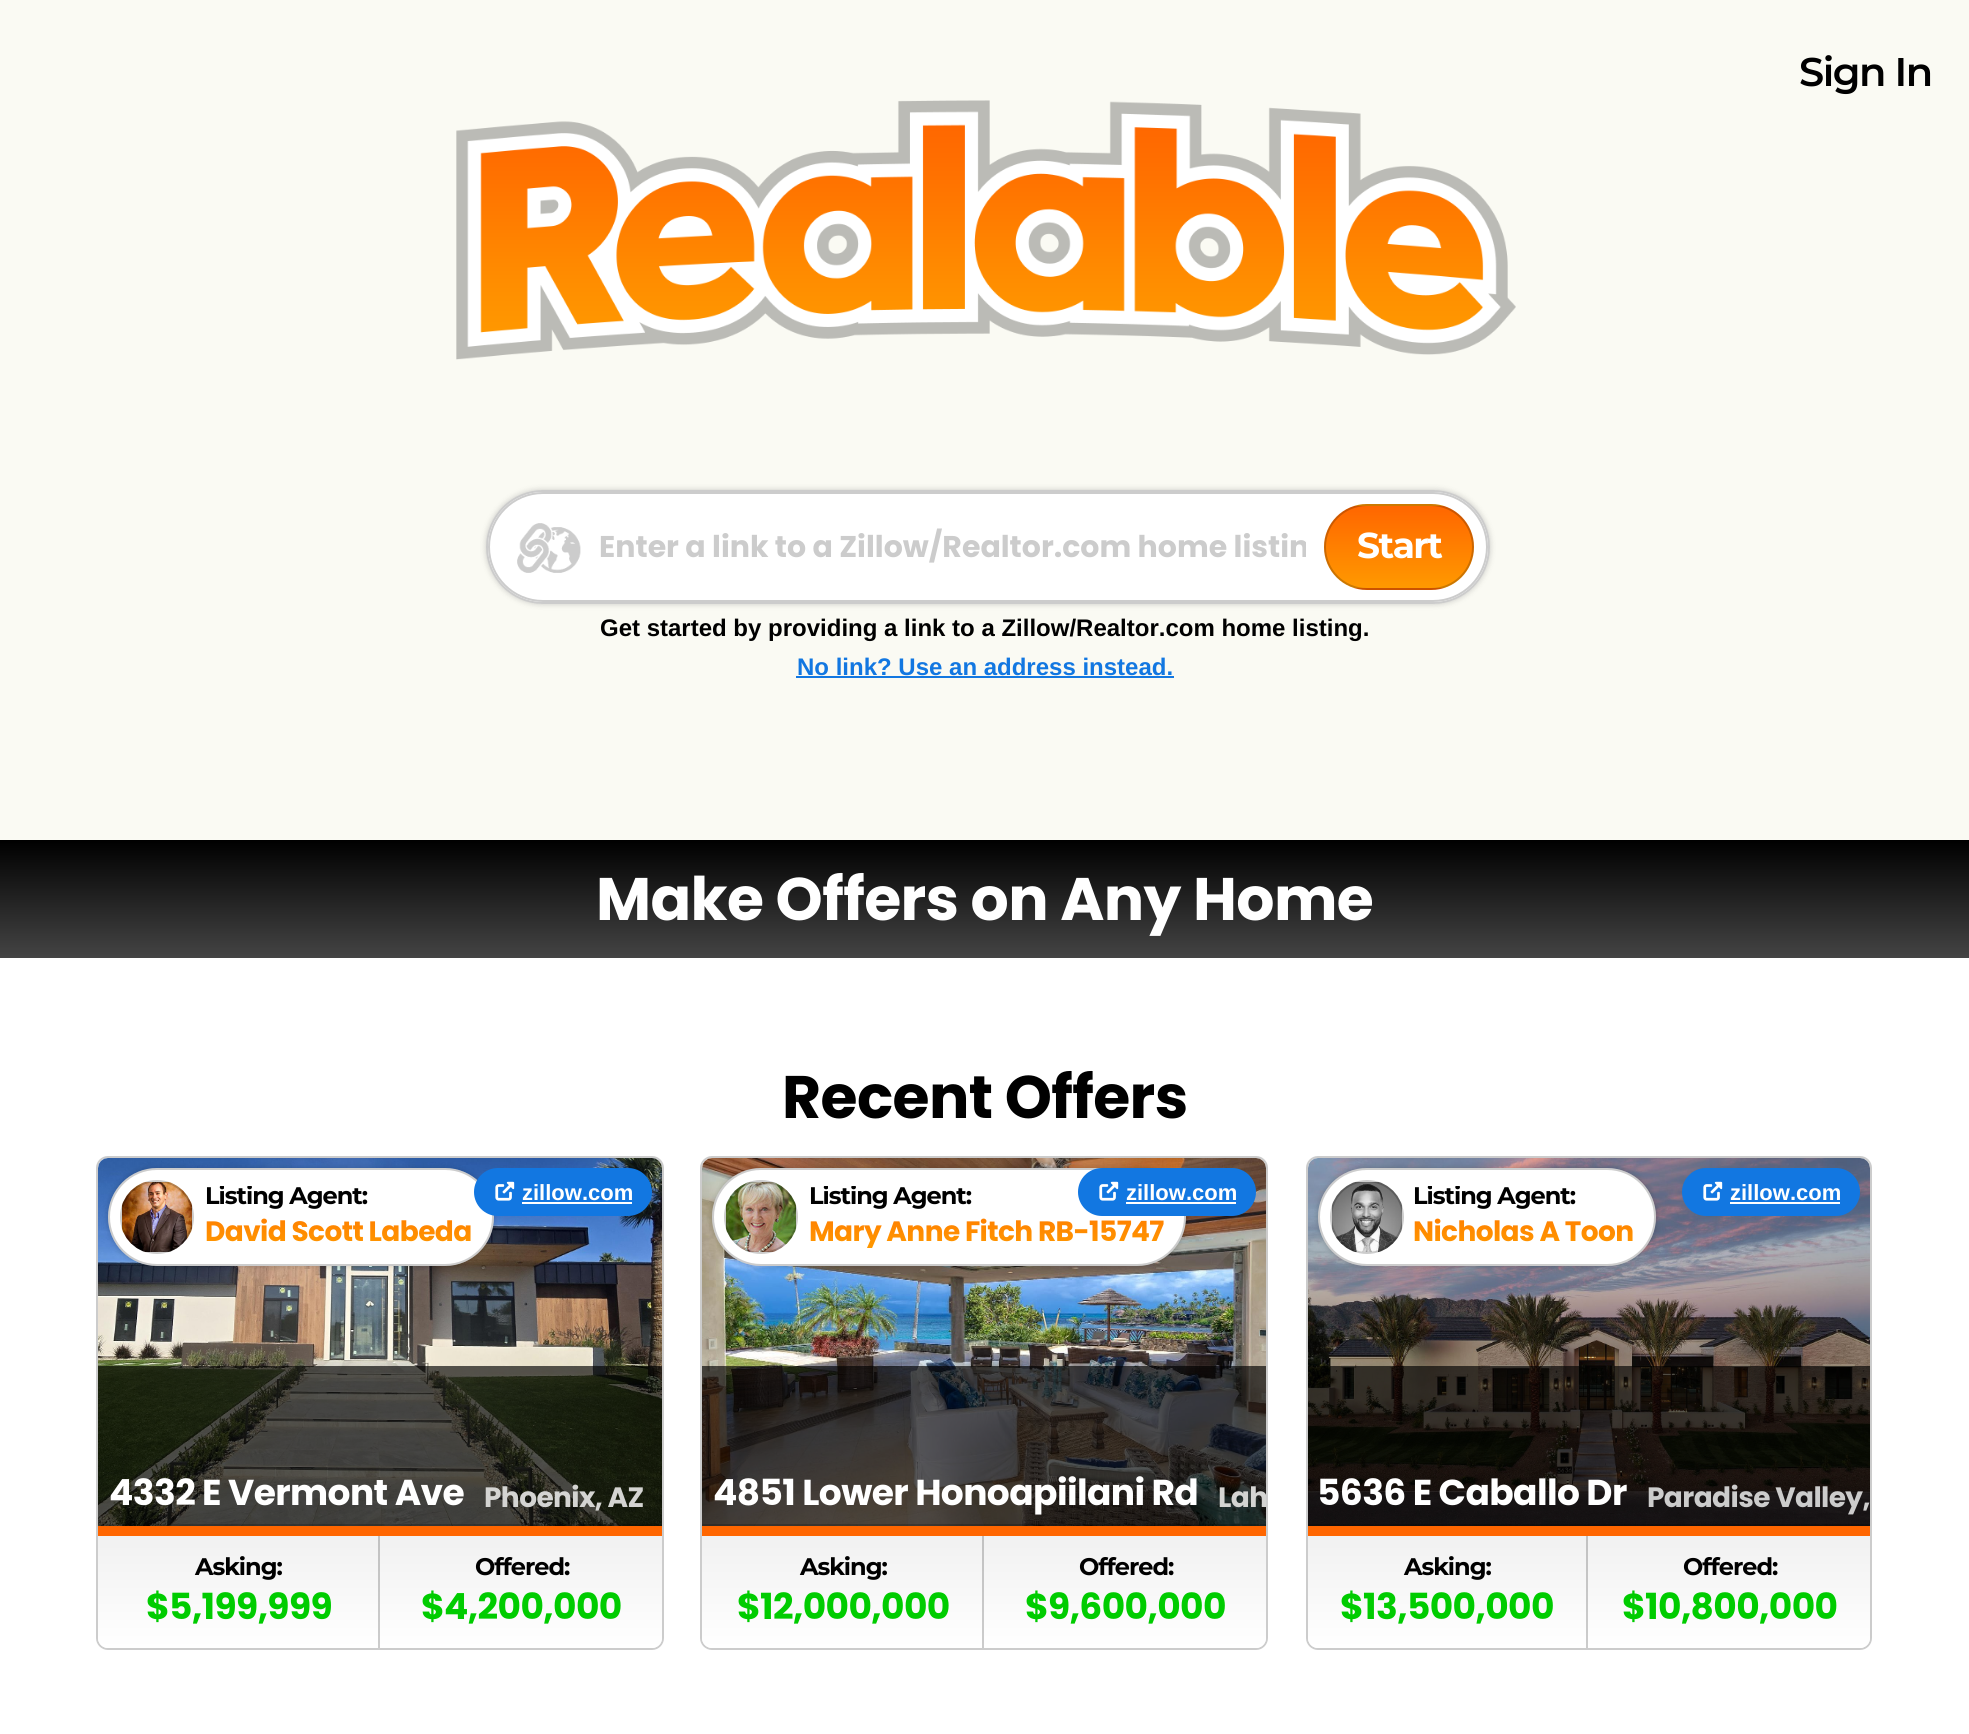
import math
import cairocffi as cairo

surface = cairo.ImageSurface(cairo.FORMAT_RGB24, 1969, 1734)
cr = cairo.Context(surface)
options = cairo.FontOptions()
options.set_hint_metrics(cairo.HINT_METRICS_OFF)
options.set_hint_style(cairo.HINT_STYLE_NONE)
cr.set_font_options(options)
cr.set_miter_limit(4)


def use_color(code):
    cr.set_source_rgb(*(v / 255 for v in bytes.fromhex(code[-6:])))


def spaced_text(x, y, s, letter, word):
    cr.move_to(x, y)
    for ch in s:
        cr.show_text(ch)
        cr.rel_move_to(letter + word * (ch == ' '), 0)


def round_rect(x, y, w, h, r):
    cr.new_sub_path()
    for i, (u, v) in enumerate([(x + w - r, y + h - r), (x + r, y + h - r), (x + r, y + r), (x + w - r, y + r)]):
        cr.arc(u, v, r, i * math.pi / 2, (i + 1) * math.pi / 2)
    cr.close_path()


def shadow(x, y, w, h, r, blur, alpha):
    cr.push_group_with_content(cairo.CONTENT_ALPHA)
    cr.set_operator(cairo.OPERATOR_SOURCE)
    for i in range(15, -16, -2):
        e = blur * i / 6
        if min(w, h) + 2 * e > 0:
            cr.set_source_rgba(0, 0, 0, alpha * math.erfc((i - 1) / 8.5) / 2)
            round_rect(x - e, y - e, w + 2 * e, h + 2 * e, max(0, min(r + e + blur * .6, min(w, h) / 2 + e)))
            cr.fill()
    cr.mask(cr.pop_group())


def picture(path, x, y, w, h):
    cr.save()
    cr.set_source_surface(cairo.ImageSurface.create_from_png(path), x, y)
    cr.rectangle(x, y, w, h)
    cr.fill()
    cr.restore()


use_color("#ffffff")
cr.paint()
use_color("#fafaf3")
cr.rectangle(0, 0, 1969, 840)
cr.fill()
cr.select_font_face("Montserrat SemiBold")
cr.set_font_size(40)
use_color("#000000")
spaced_text(1799, 86, "Sign In", -1.5, 0)
picture("img1.png", 456, 100, 1060, 260)
use_color("#000000")
shadow(486, 490, 1004, 114, 57, 3, 0.2)
use_color("#ffffff")
round_rect(486, 490, 1004, 114, 57)
cr.fill()
round_rect(487, 491, 1002, 112, 56)
cr.set_source_rgba(0, 0, 0, 0.2)
cr.stroke()
use_color("#ffffff")
round_rect(488, 492, 1000, 110, 55)
cr.fill()
picture("img2.png", 517, 523, 64, 50)
round_rect(489, 493, 998, 108, 54)
cr.set_source_rgba(0, 0, 0, 0.2)
cr.stroke()
cr.save()
cr.rectangle(600, 524, 706, 46)
cr.clip()
cr.select_font_face("Poppins", cairo.FONT_SLANT_NORMAL, cairo.FONT_WEIGHT_BOLD)
cr.set_font_size(30)
use_color("#cccccc")
cr.move_to(599, 557)
cr.show_text("Enter a link to a Zillow/Realtor.com home listin")
cr.restore()
cr.save()
round_rect(1324, 504, 150, 86, 43)
cr.clip()
gradient = cairo.LinearGradient(1399, 424, 1399, 506)
gradient.add_color_stop_rgba(0, 1, 0.4, 0, 1)
gradient.add_color_stop_rgba(1, 1, 0.6, 0, 1)
cr.set_source(gradient)
cr.rectangle(1354, 504, 90, 2)
cr.fill()
gradient = cairo.LinearGradient(1399, 506, 1399, 588)
gradient.add_color_stop_rgba(0, 1, 0.4, 0, 1)
gradient.add_color_stop_rgba(1, 1, 0.6, 0, 1)
cr.set_source(gradient)
cr.rectangle(1324, 506, 150, 82)
cr.fill()
gradient = cairo.LinearGradient(1399, 588, 1399, 670)
gradient.add_color_stop_rgba(0, 1, 0.4, 0, 1)
gradient.add_color_stop_rgba(1, 1, 0.6, 0, 1)
cr.set_source(gradient)
cr.rectangle(1354, 588, 90, 2)
cr.fill()
cr.restore()
round_rect(1325, 505, 148, 84, 42)
cr.stroke()
cr.select_font_face("Montserrat", cairo.FONT_SLANT_NORMAL, cairo.FONT_WEIGHT_BOLD)
cr.set_font_size(36)
use_color("#ffffff")
spaced_text(1357, 558, "Start", -1.5, 0)
cr.select_font_face("Liberation Sans", cairo.FONT_SLANT_NORMAL, cairo.FONT_WEIGHT_BOLD)
cr.set_font_size(24)
use_color("#000000")
cr.move_to(600, 636)
cr.show_text("Get started by providing a link to a Zillow/Realtor.com home listing.")
use_color("#1277e1")
cr.move_to(797, 675)
cr.show_text("No link? Use an address instead.")
cr.rectangle(796, 676, 378, 2)
cr.fill()
gradient = cairo.LinearGradient(985, 840, 985, 958)
gradient.add_color_stop_rgba(0, 0, 0, 0, 1)
gradient.add_color_stop_rgba(1, 0.267, 0.267, 0.267, 1)
cr.set_source(gradient)
cr.rectangle(0, 840, 1969, 118)
cr.fill()
cr.select_font_face("Poppins", cairo.FONT_SLANT_NORMAL, cairo.FONT_WEIGHT_BOLD)
cr.set_font_size(60)
use_color("#ffffff")
spaced_text(596, 920, "Make Offers on Any Home", -0.6, 0)
use_color("#000000")
spaced_text(782, 1118, "Recent Offers", -0.6, 0)
round_rect(97, 1157, 566, 492, 11)
use_color("#cccccc")
cr.stroke()
picture("img3.png", 98, 1158, 564, 368)
cr.set_source_rgba(0, 0, 0, 0.2)
cr.rectangle(98, 1524, 564, 2)
cr.fill()
use_color("#000000")
shadow(108, 1168, 386, 98, 49, 3, 0.2)
use_color("#ffffff")
round_rect(108, 1168, 386, 98, 49)
cr.fill()
round_rect(109, 1169, 384, 96, 48)
cr.set_source_rgba(0, 0, 0, 0.2)
cr.stroke()
picture("img4.png", 122, 1182, 70, 70)
cr.arc(157, 1217, 36, 0, 2 * math.pi)
cr.stroke()
cr.save()
cr.rectangle(204, 1186, 268, 62)
cr.clip()
cr.select_font_face("Montserrat", cairo.FONT_SLANT_NORMAL, cairo.FONT_WEIGHT_BOLD)
cr.set_font_size(24)
use_color("#000000")
spaced_text(205, 1204, "Listing Agent:", -1, 0)
cr.restore()
cr.set_font_size(28)
gradient = cairo.LinearGradient(338, 1186, 338, 1248)
gradient.add_color_stop_rgba(0, 1, 0.4, 0, 1)
gradient.add_color_stop_rgba(1, 1, 0.6, 0, 1)
cr.set_source(gradient)
spaced_text(205, 1241, "David Scott Labeda", -0.6, 0)
use_color("#1277e1")
round_rect(474, 1168, 178, 48, 24)
cr.fill()
picture("img5.png", 495, 1181, 20, 20)
cr.select_font_face("Liberation Sans", cairo.FONT_SLANT_NORMAL, cairo.FONT_WEIGHT_BOLD)
cr.set_font_size(22)
use_color("#ffffff")
cr.move_to(522, 1200)
cr.show_text("zillow.com")
cr.rectangle(522, 1202, 110, 2)
cr.fill()
cr.set_source_rgba(0, 0, 0, 0.65)
cr.rectangle(98, 1366, 564, 160)
cr.fill()
cr.select_font_face("Poppins", cairo.FONT_SLANT_NORMAL, cairo.FONT_WEIGHT_BOLD)
cr.set_font_size(36)
use_color("#ffffff")
spaced_text(109, 1505, "4332 E Vermont Ave", -0.6, 0)
cr.set_font_size(28)
use_color("#d4d4d2")
spaced_text(484, 1507, "Phoenix, AZ", -0.6, 0)
gradient = cairo.LinearGradient(380, 1536, 380, 1648)
gradient.add_color_stop_rgba(0, 0.945, 0.945, 0.945, 1)
gradient.add_color_stop_rgba(1, 1, 1, 1, 1)
cr.set_source(gradient)
cr.new_path()
cr.move_to(98, 1536)
cr.line_to(662, 1536)
cr.line_to(662, 1638)
cr.curve_to(662, 1643.5, 657.5, 1648, 652, 1648)
cr.line_to(108, 1648)
cr.curve_to(102.5, 1648, 98, 1643.5, 98, 1638)
cr.close_path()
cr.fill()
gradient = cairo.LinearGradient(380, 1536, 380, 1648)
gradient.add_color_stop_rgba(0, 0.757, 0.757, 0.757, 1)
gradient.add_color_stop_rgba(1, 0.8, 0.8, 0.8, 1)
cr.set_source(gradient)
cr.rectangle(378, 1536, 2, 112)
cr.fill()
use_color("#ff6600")
cr.rectangle(98, 1526, 564, 10)
cr.fill()
cr.select_font_face("Montserrat", cairo.FONT_SLANT_NORMAL, cairo.FONT_WEIGHT_BOLD)
cr.set_font_size(24)
use_color("#000000")
spaced_text(195, 1575, "Asking:", -1, 0)
cr.select_font_face("Poppins", cairo.FONT_SLANT_NORMAL, cairo.FONT_WEIGHT_BOLD)
cr.set_font_size(36)
use_color("#00cc00")
spaced_text(146, 1619, "$5,199,999", -0.6, 0)
cr.select_font_face("Montserrat", cairo.FONT_SLANT_NORMAL, cairo.FONT_WEIGHT_BOLD)
cr.set_font_size(24)
use_color("#000000")
spaced_text(475, 1575, "Offered:", -1, 0)
cr.select_font_face("Poppins", cairo.FONT_SLANT_NORMAL, cairo.FONT_WEIGHT_BOLD)
cr.set_font_size(36)
use_color("#00cc00")
spaced_text(421, 1619, "$4,200,000", -0.6, 0)
round_rect(701, 1157, 566, 492, 11)
use_color("#cccccc")
cr.stroke()
picture("img6.png", 702, 1158, 564, 368)
cr.set_source_rgba(0, 0, 0, 0.2)
cr.rectangle(702, 1524, 564, 2)
cr.fill()
use_color("#000000")
shadow(712, 1168, 474, 98, 49, 3, 0.2)
use_color("#ffffff")
round_rect(712, 1168, 474, 98, 49)
cr.fill()
round_rect(713, 1169, 472, 96, 48)
cr.set_source_rgba(0, 0, 0, 0.2)
cr.stroke()
picture("img7.png", 726, 1182, 70, 70)
cr.arc(761, 1217, 36, 0, 2 * math.pi)
cr.stroke()
cr.save()
cr.rectangle(808, 1186, 356, 62)
cr.clip()
cr.select_font_face("Montserrat", cairo.FONT_SLANT_NORMAL, cairo.FONT_WEIGHT_BOLD)
cr.set_font_size(24)
use_color("#000000")
spaced_text(809, 1204, "Listing Agent:", -1, 0)
cr.select_font_face("Poppins", cairo.FONT_SLANT_NORMAL, cairo.FONT_WEIGHT_BOLD)
cr.set_font_size(28)
gradient = cairo.LinearGradient(986, 1186, 986, 1248)
gradient.add_color_stop_rgba(0, 1, 0.4, 0, 1)
gradient.add_color_stop_rgba(1, 1, 0.6, 0, 1)
cr.set_source(gradient)
spaced_text(809, 1241, "Mary Anne Fitch RB-15747", -0.6, 0)
cr.restore()
use_color("#1277e1")
round_rect(1078, 1168, 178, 48, 24)
cr.fill()
picture("img5.png", 1099, 1181, 20, 20)
cr.select_font_face("Liberation Sans", cairo.FONT_SLANT_NORMAL, cairo.FONT_WEIGHT_BOLD)
cr.set_font_size(22)
use_color("#ffffff")
cr.move_to(1126, 1200)
cr.show_text("zillow.com")
cr.rectangle(1126, 1202, 110, 2)
cr.fill()
cr.set_source_rgba(0, 0, 0, 0.65)
cr.rectangle(702, 1366, 564, 160)
cr.fill()
cr.select_font_face("Poppins", cairo.FONT_SLANT_NORMAL, cairo.FONT_WEIGHT_BOLD)
cr.set_font_size(36)
use_color("#ffffff")
spaced_text(713, 1505, "4851 Lower Honoapiilani Rd", -0.6, 0)
cr.save()
round_rect(702, 1158, 564, 490, 10)
cr.clip()
cr.set_font_size(28)
use_color("#d4d4d2")
spaced_text(1218, 1507, "Lah", -0.6, 0)
cr.restore()
gradient = cairo.LinearGradient(984, 1536, 984, 1648)
gradient.add_color_stop_rgba(0, 0.945, 0.945, 0.945, 1)
gradient.add_color_stop_rgba(1, 1, 1, 1, 1)
cr.set_source(gradient)
cr.new_path()
cr.move_to(702, 1536)
cr.line_to(1266, 1536)
cr.line_to(1266, 1638)
cr.curve_to(1266, 1643.5, 1261.5, 1648, 1256, 1648)
cr.line_to(712, 1648)
cr.curve_to(706.5, 1648, 702, 1643.5, 702, 1638)
cr.close_path()
cr.fill()
gradient = cairo.LinearGradient(984, 1536, 984, 1648)
gradient.add_color_stop_rgba(0, 0.757, 0.757, 0.757, 1)
gradient.add_color_stop_rgba(1, 0.8, 0.8, 0.8, 1)
cr.set_source(gradient)
cr.rectangle(982, 1536, 2, 112)
cr.fill()
use_color("#ff6600")
cr.rectangle(702, 1526, 564, 10)
cr.fill()
cr.select_font_face("Montserrat", cairo.FONT_SLANT_NORMAL, cairo.FONT_WEIGHT_BOLD)
cr.set_font_size(24)
use_color("#000000")
spaced_text(800, 1575, "Asking:", -1, 0)
cr.select_font_face("Poppins", cairo.FONT_SLANT_NORMAL, cairo.FONT_WEIGHT_BOLD)
cr.set_font_size(36)
use_color("#00cc00")
spaced_text(737, 1619, "$12,000,000", -0.6, 0)
cr.select_font_face("Montserrat", cairo.FONT_SLANT_NORMAL, cairo.FONT_WEIGHT_BOLD)
cr.set_font_size(24)
use_color("#000000")
spaced_text(1079, 1575, "Offered:", -1, 0)
cr.select_font_face("Poppins", cairo.FONT_SLANT_NORMAL, cairo.FONT_WEIGHT_BOLD)
cr.set_font_size(36)
use_color("#00cc00")
spaced_text(1025, 1619, "$9,600,000", -0.6, 0)
round_rect(1307, 1157, 564, 492, 11)
use_color("#cccccc")
cr.stroke()
picture("img8.png", 1308, 1158, 562, 368)
cr.set_source_rgba(0, 0, 0, 0.2)
cr.rectangle(1308, 1524, 562, 2)
cr.fill()
use_color("#000000")
shadow(1318, 1168, 338, 98, 49, 3, 0.2)
use_color("#ffffff")
round_rect(1318, 1168, 338, 98, 49)
cr.fill()
round_rect(1319, 1169, 336, 96, 48)
cr.set_source_rgba(0, 0, 0, 0.2)
cr.stroke()
picture("img9.png", 1332, 1182, 70, 70)
cr.arc(1367, 1217, 36, 0, 2 * math.pi)
cr.stroke()
cr.save()
cr.rectangle(1414, 1186, 220, 62)
cr.clip()
cr.select_font_face("Montserrat", cairo.FONT_SLANT_NORMAL, cairo.FONT_WEIGHT_BOLD)
cr.set_font_size(24)
use_color("#000000")
spaced_text(1413, 1204, "Listing Agent:", -1, 0)
cr.restore()
cr.set_font_size(28)
gradient = cairo.LinearGradient(1523, 1186, 1523, 1248)
gradient.add_color_stop_rgba(0, 1, 0.4, 0, 1)
gradient.add_color_stop_rgba(1, 1, 0.6, 0, 1)
cr.set_source(gradient)
spaced_text(1413, 1241, "Nicholas A Toon", -0.6, 0)
use_color("#1277e1")
round_rect(1682, 1168, 178, 48, 24)
cr.fill()
picture("img5.png", 1703, 1181, 20, 20)
cr.select_font_face("Liberation Sans", cairo.FONT_SLANT_NORMAL, cairo.FONT_WEIGHT_BOLD)
cr.set_font_size(22)
use_color("#ffffff")
cr.move_to(1730, 1200)
cr.show_text("zillow.com")
cr.rectangle(1730, 1202, 110, 2)
cr.fill()
cr.set_source_rgba(0, 0, 0, 0.65)
cr.rectangle(1308, 1366, 562, 160)
cr.fill()
cr.select_font_face("Poppins", cairo.FONT_SLANT_NORMAL, cairo.FONT_WEIGHT_BOLD)
cr.set_font_size(36)
use_color("#ffffff")
spaced_text(1317, 1505, "5636 E Caballo Dr", -0.6, 0)
cr.set_font_size(28)
use_color("#cccccc")
spaced_text(1647, 1507, "Paradise Valley,", -0.6, 0)
gradient = cairo.LinearGradient(1589, 1536, 1589, 1648)
gradient.add_color_stop_rgba(0, 0.945, 0.945, 0.945, 1)
gradient.add_color_stop_rgba(1, 1, 1, 1, 1)
cr.set_source(gradient)
cr.new_path()
cr.move_to(1308, 1536)
cr.line_to(1870, 1536)
cr.line_to(1870, 1638)
cr.curve_to(1870, 1643.5, 1865.5, 1648, 1860, 1648)
cr.line_to(1318, 1648)
cr.curve_to(1312.5, 1648, 1308, 1643.5, 1308, 1638)
cr.close_path()
cr.fill()
gradient = cairo.LinearGradient(1589, 1536, 1589, 1648)
gradient.add_color_stop_rgba(0, 0.757, 0.757, 0.757, 1)
gradient.add_color_stop_rgba(1, 0.8, 0.8, 0.8, 1)
cr.set_source(gradient)
cr.rectangle(1586, 1536, 2, 112)
cr.fill()
use_color("#ff6600")
cr.rectangle(1308, 1526, 562, 10)
cr.fill()
cr.select_font_face("Montserrat", cairo.FONT_SLANT_NORMAL, cairo.FONT_WEIGHT_BOLD)
cr.set_font_size(24)
use_color("#000000")
spaced_text(1404, 1575, "Asking:", -1, 0)
cr.select_font_face("Poppins", cairo.FONT_SLANT_NORMAL, cairo.FONT_WEIGHT_BOLD)
cr.set_font_size(36)
use_color("#00cc00")
spaced_text(1340, 1619, "$13,500,000", -0.6, 0)
cr.select_font_face("Montserrat", cairo.FONT_SLANT_NORMAL, cairo.FONT_WEIGHT_BOLD)
cr.set_font_size(24)
use_color("#000000")
spaced_text(1683, 1575, "Offered:", -1, 0)
cr.select_font_face("Poppins", cairo.FONT_SLANT_NORMAL, cairo.FONT_WEIGHT_BOLD)
cr.set_font_size(36)
use_color("#00cc00")
spaced_text(1622, 1619, "$10,800,000", -0.6, 0)
surface.write_to_png("result.png")
